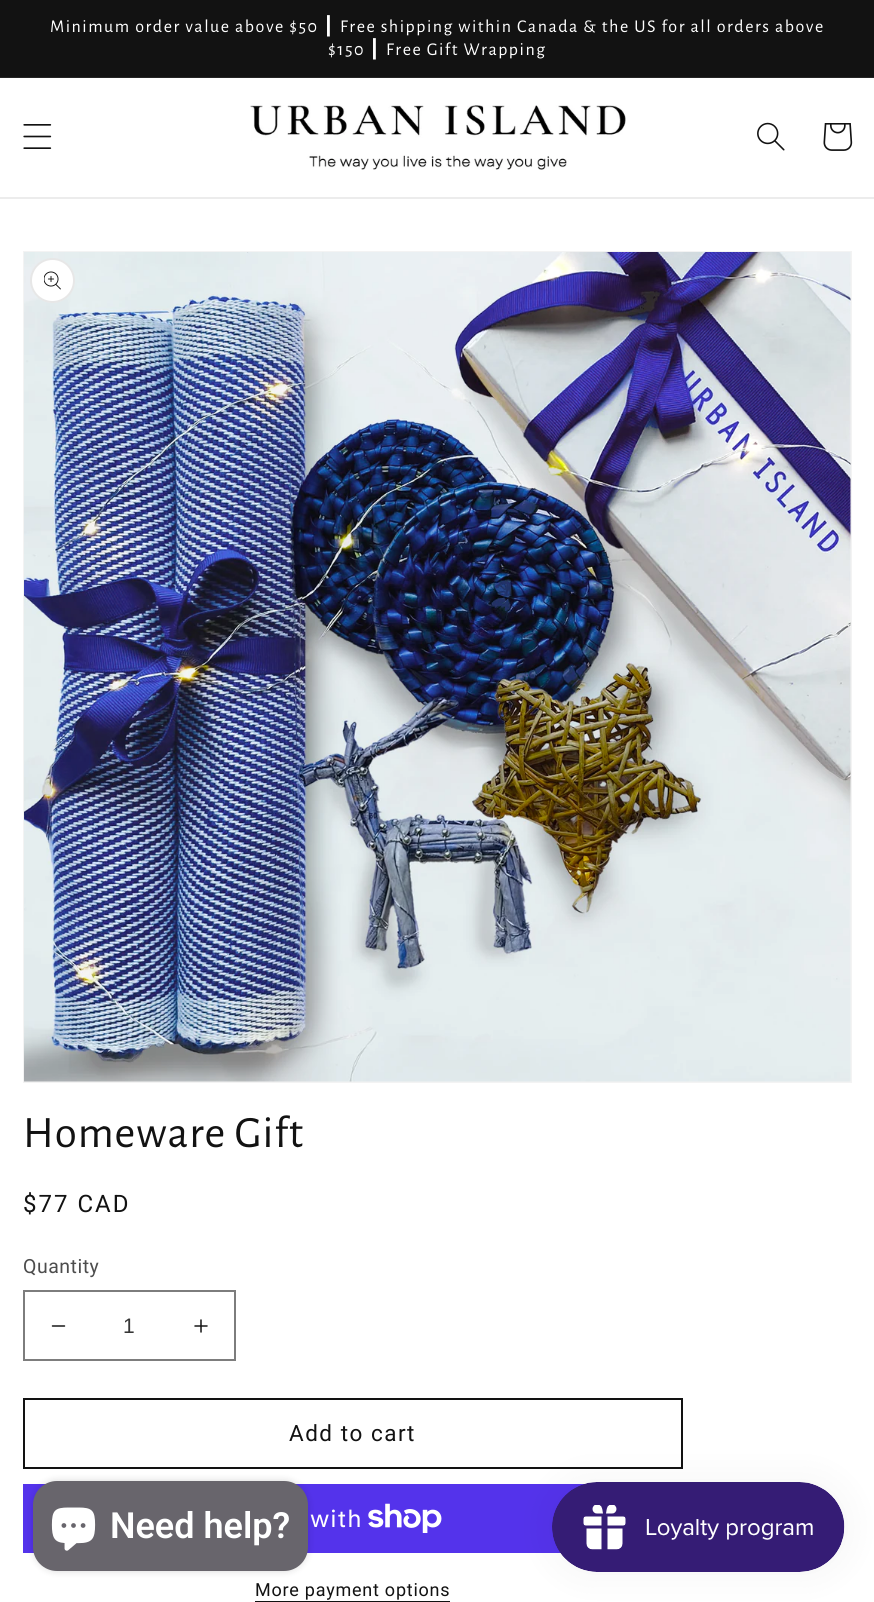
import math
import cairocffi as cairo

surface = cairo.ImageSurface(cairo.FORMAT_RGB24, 874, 1602)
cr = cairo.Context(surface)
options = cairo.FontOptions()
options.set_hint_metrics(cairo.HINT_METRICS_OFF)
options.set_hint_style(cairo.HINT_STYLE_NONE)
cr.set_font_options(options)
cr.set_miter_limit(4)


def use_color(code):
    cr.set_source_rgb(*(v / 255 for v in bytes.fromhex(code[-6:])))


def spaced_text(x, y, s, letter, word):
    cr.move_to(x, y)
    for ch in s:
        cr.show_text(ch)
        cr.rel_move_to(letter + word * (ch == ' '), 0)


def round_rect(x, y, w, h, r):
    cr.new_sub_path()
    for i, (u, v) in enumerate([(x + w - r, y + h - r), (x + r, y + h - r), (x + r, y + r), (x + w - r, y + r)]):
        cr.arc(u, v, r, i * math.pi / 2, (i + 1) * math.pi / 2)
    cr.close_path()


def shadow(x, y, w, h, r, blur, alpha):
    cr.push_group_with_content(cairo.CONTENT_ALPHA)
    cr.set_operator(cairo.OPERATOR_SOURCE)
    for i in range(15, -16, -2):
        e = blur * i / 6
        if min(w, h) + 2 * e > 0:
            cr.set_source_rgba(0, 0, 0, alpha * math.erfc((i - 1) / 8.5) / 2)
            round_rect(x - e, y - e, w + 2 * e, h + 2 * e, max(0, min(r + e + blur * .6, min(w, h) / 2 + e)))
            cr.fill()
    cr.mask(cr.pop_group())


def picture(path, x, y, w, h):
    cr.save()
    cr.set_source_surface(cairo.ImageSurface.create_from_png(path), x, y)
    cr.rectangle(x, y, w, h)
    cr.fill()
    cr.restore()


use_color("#ffffff")
cr.paint()
use_color("#121212")
cr.rectangle(0, 0, 874, 77)
cr.fill()
use_color("#252525")
cr.rectangle(0, 77, 874, 1)
cr.fill()
cr.select_font_face("Alegreya Sans")
cr.set_font_size(18)
use_color("#ffffff")
spaced_text(50, 32, "Minimum order value above $50", 1.5, 0)
cr.select_font_face("DejaVu Sans")
spaced_text(323, 32, "┃", 1.5, 0)
cr.select_font_face("Alegreya Sans")
spaced_text(340, 32, "Free shipping within Canada & the US for all orders above", 1.5, 0)
spaced_text(328, 55, "$150", 1.5, 0)
cr.select_font_face("DejaVu Sans")
spaced_text(369, 55, "┃", 1.5, 0)
cr.select_font_face("Alegreya Sans")
spaced_text(386, 55, "Free Gift Wrapping", 1.5, 0)
use_color("#ececec")
cr.rectangle(0, 197, 874, 2)
cr.fill()
picture("img1.png", 23, 124, 29, 25)
picture("img2.png", 250, 105, 376, 65)
picture("img3.png", 757, 122, 28, 29)
picture("img4.png", 823, 123, 30, 28)
cr.rectangle(24, 252, 827, 830)
use_color("#f3f3f3")
cr.stroke()
picture("img5.png", 24, 252, 827, 830)
use_color("#ffffff")
cr.arc(52.5, 280.5, 22.5, 0, 2 * math.pi)
cr.fill()
cr.arc(52.5, 280.5, 21.5, 0, 2 * math.pi)
cr.set_source_rgba(0.071, 0.071, 0.071, 0.1)
cr.stroke()
picture("img6.png", 44, 271, 17, 19)
cr.set_font_size(45)
use_color("#121212")
spaced_text(23, 1147, "Homeware Gift", 0.9, 0)
cr.select_font_face("Roboto")
cr.set_font_size(24)
spaced_text(23, 1212, "$77 CAD", 2, 0)
cr.set_font_size(19.5)
use_color("#4d4d4d")
spaced_text(23, 1273, "Quantity", 0.5, 0)
picture("img7.png", 51, 1325, 15, 2)
picture("img8.png", 194, 1319, 14, 14)
cr.rectangle(24, 1291, 211, 69)
use_color("#7d7d7d")
cr.stroke()
cr.select_font_face("Liberation Sans")
cr.set_font_size(21)
use_color("#363636")
cr.move_to(123, 1333)
cr.show_text("1")
cr.rectangle(24, 1399, 658, 69)
use_color("#121212")
cr.stroke()
cr.select_font_face("Roboto")
cr.set_font_size(22.5)
spaced_text(289, 1441, "Add to cart", 1.5, 0)
use_color("#5433eb")
cr.rectangle(23, 1484, 561, 69)
cr.fill()
cr.select_font_face("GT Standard")
cr.set_font_size(24)
use_color("#ffffff")
spaced_text(310, 1527, "with", 0.9, 0)
picture("img9.png", 368, 1503, 74, 30)
cr.select_font_face("Roboto")
cr.set_font_size(18)
use_color("#121212")
spaced_text(255, 1596, "More payment options", 0.75, 0)
cr.rectangle(255, 1601, 195, 1)
cr.fill()
use_color("#000000")
shadow(552, 1482, 293, 90, 45, 19, 0.05)
picture("img10.png", 552, 1482, 293, 90)
shadow(33, 1481, 275, 90, 24, 4, 0.15)
use_color("#68656c")
round_rect(33, 1481, 275, 90, 24)
cr.fill()
picture("img11.png", 51, 1507, 45, 44)
cr.select_font_face("Roboto SemiBold")
cr.set_font_size(36)
use_color("#ffffff")
cr.move_to(110, 1538)
cr.show_text("Need help?")
surface.write_to_png("result.png")
